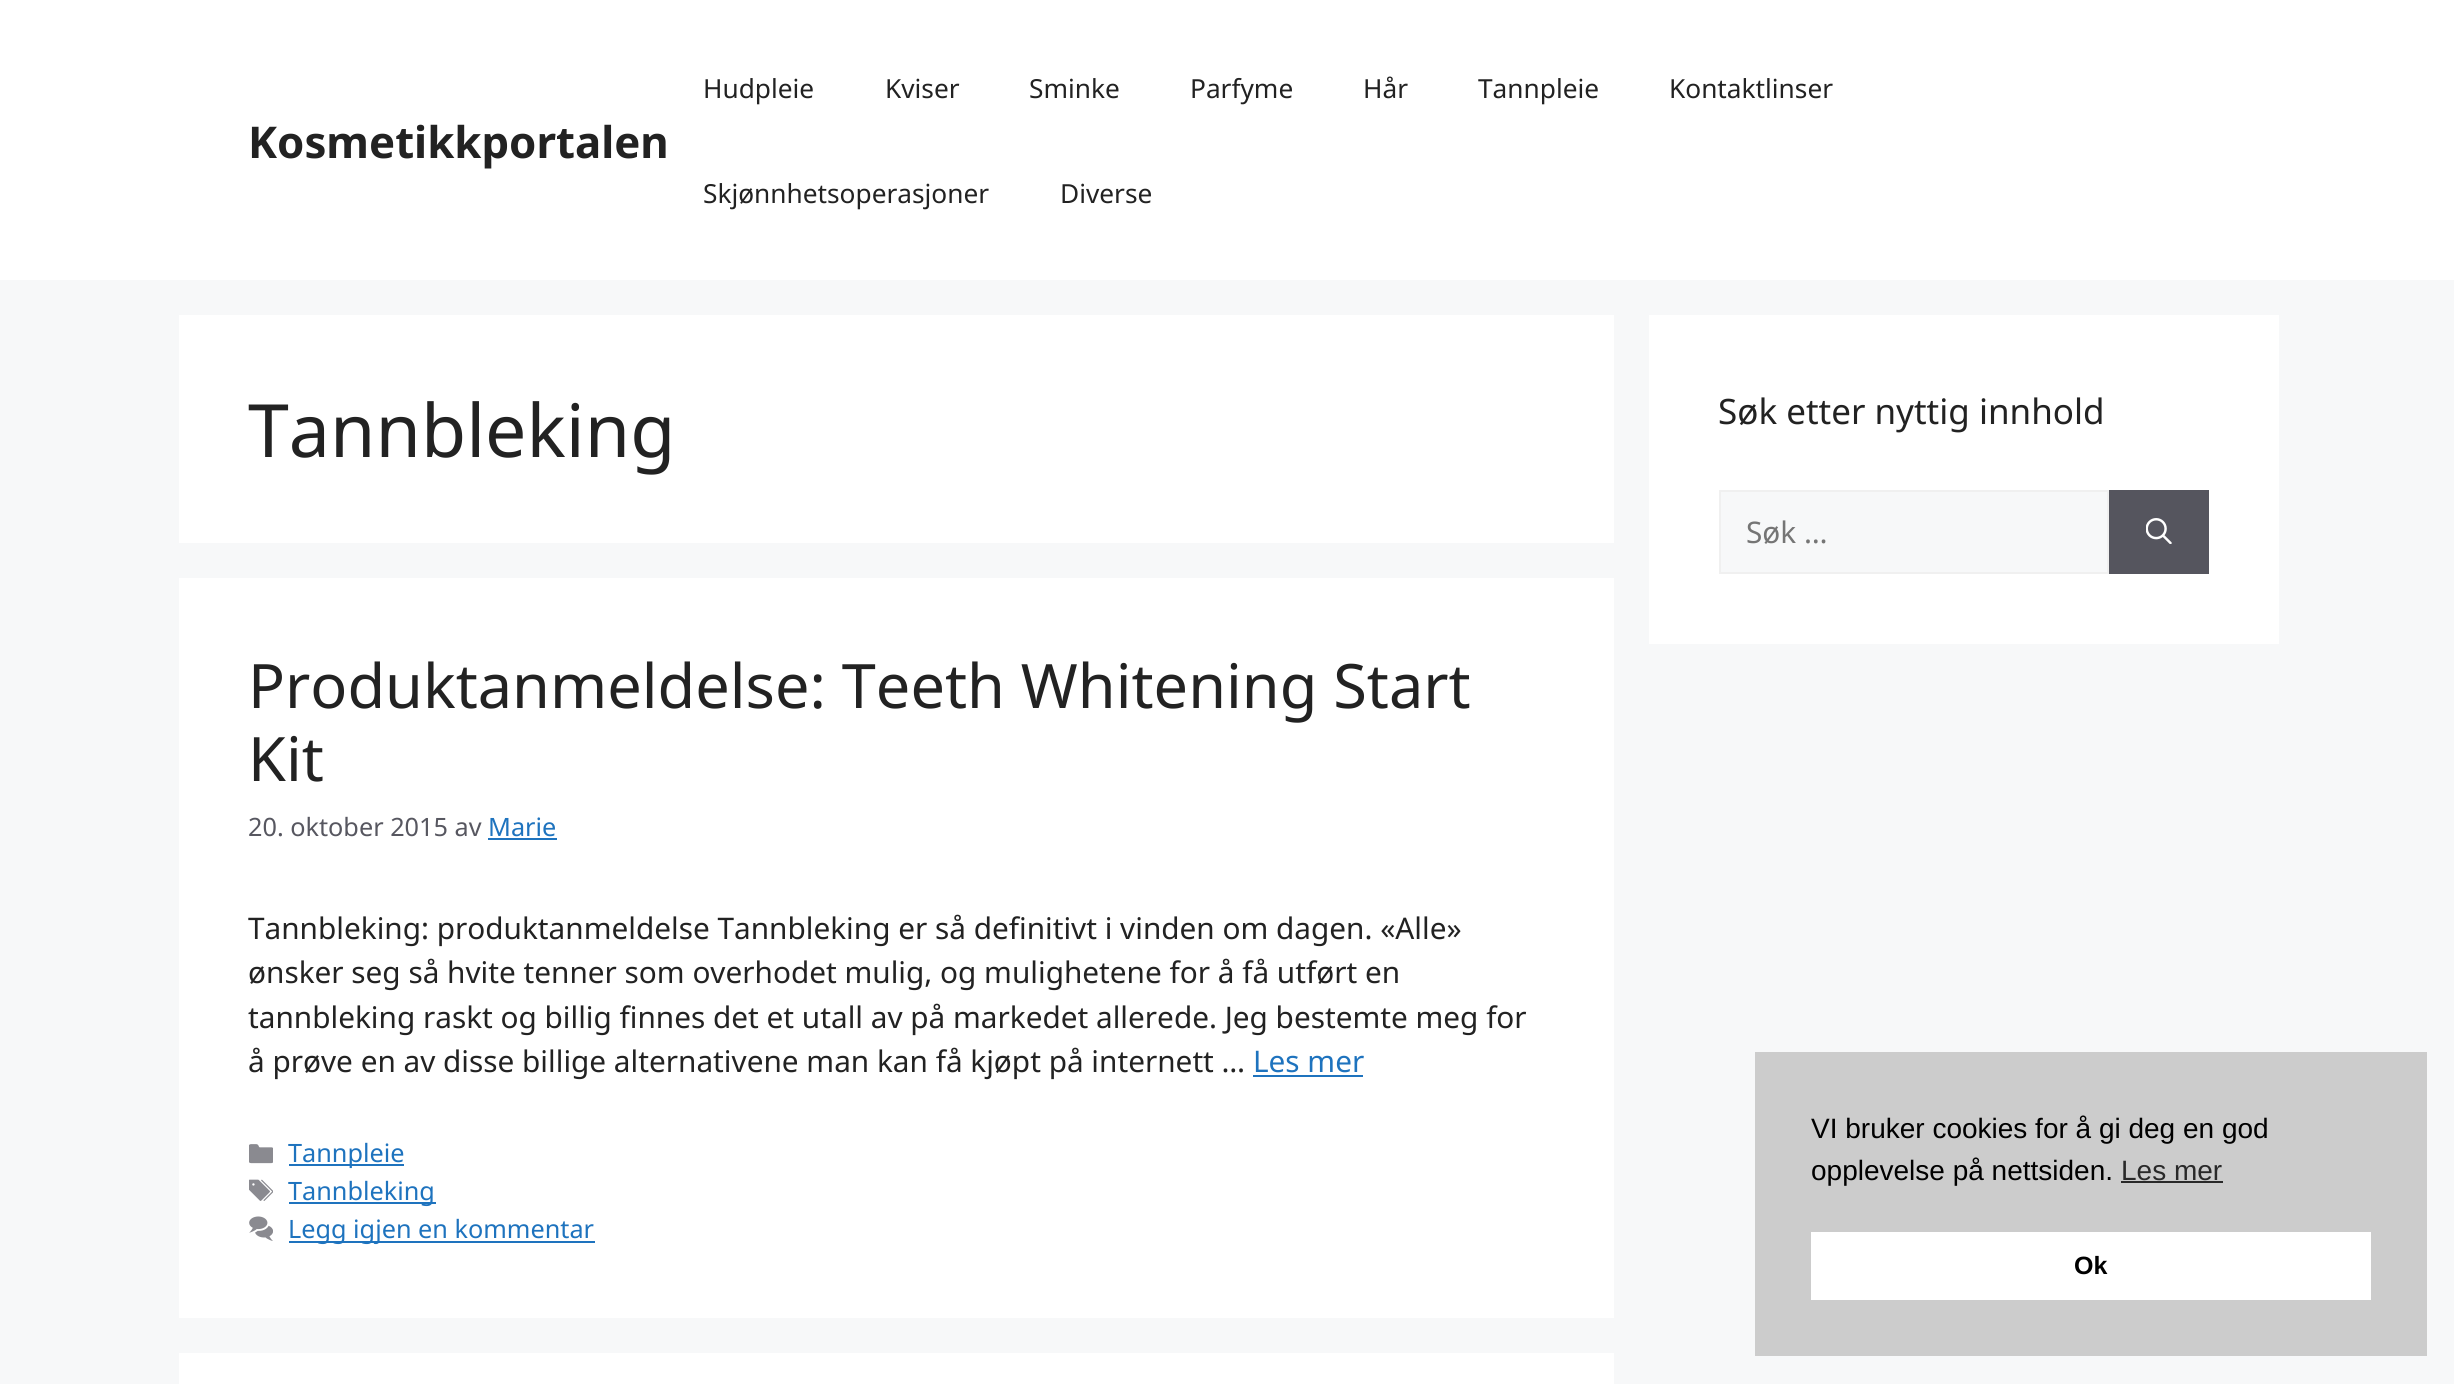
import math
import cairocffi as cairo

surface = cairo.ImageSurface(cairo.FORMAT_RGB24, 2454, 1384)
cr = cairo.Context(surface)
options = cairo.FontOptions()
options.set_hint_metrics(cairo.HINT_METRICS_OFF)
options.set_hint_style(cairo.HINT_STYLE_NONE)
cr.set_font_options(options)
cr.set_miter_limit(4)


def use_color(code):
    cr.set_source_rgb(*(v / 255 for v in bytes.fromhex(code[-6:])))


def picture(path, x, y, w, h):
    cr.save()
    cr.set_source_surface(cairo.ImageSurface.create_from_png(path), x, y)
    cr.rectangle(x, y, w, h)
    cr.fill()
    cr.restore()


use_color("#f7f8f9")
cr.paint()
use_color("#ffffff")
cr.rectangle(0, 0, 2454, 280)
cr.fill()
cr.select_font_face("Noto Sans", cairo.FONT_SLANT_NORMAL, cairo.FONT_WEIGHT_BOLD)
cr.set_font_size(43.75)
use_color("#222222")
cr.move_to(248, 158)
cr.show_text("Kosmetikkportalen")
cr.select_font_face("Noto Sans")
cr.set_font_size(26.25)
cr.move_to(703, 98)
cr.show_text("Hudpleie")
cr.move_to(885, 98)
cr.show_text("Kviser")
cr.move_to(1029, 98)
cr.show_text("Sminke")
cr.move_to(1190, 98)
cr.show_text("Parfyme")
cr.move_to(1363, 98)
cr.show_text("Hår")
cr.move_to(1478, 98)
cr.show_text("Tannpleie")
cr.move_to(1669, 98)
cr.show_text("Kontaktlinser")
cr.move_to(703, 203)
cr.show_text("Skjønnhetsoperasjoner")
cr.move_to(1060, 203)
cr.show_text("Diverse")
use_color("#ffffff")
cr.rectangle(179, 315, 1435, 228)
cr.fill()
cr.set_font_size(73.5)
use_color("#222222")
cr.move_to(248, 457)
cr.show_text("Tannbleking")
use_color("#ffffff")
cr.rectangle(179, 578, 1435, 740)
cr.fill()
cr.set_font_size(61.25)
use_color("#222222")
cr.move_to(248, 708)
cr.show_text("Produktanmeldelse: Teeth Whitening Start")
cr.move_to(248, 781)
cr.show_text("Kit")
cr.set_font_size(25.25)
use_color("#575760")
cr.move_to(248, 836)
cr.show_text("20. oktober 2015 av")
use_color("#1e73be")
cr.move_to(488, 836)
cr.show_text("Marie")
cr.rectangle(488, 838, 69, 2)
cr.fill()
cr.set_font_size(29.75)
use_color("#222222")
cr.move_to(248, 939)
cr.show_text("Tannbleking: produktanmeldelse Tannbleking er så definitivt i vinden om dagen. «Alle»")
cr.move_to(248, 983)
cr.show_text("ønsker seg så hvite tenner som overhodet mulig, og mulighetene for å få utført en")
cr.move_to(248, 1028)
cr.show_text("tannbleking raskt og billig finnes det et utall av på markedet allerede. Jeg bestemte meg for")
cr.move_to(248, 1072)
cr.show_text("å prøve en av disse billige alternativene man kan få kjøpt på internett …")
use_color("#1e73be")
cr.move_to(1253, 1072)
cr.show_text("Les mer")
cr.rectangle(1253, 1075, 110, 2)
cr.fill()
picture("img1.png", 249, 1144, 24, 20)
cr.rectangle(289, 1164, 115, 2)
cr.fill()
cr.set_font_size(25.25)
cr.move_to(288, 1162)
cr.show_text("Tannpleie")
picture("img2.png", 249, 1179, 24, 22)
cr.rectangle(289, 1202, 147, 2)
cr.fill()
cr.move_to(288, 1200)
cr.show_text("Tannbleking")
picture("img3.png", 249, 1216, 24, 25)
cr.rectangle(289, 1241, 306, 2)
cr.fill()
cr.move_to(288, 1238)
cr.show_text("Legg igjen en kommentar")
use_color("#ffffff")
cr.rectangle(179, 1353, 1435, 31)
cr.fill()
cr.rectangle(1649, 315, 630, 329)
cr.fill()
cr.set_font_size(35)
use_color("#222222")
cr.move_to(1718, 424)
cr.show_text("Søk etter nyttig innhold")
use_color("#f7f8f9")
cr.rectangle(1720, 491, 388, 82)
cr.fill_preserve()
use_color("#f0f0f0")
cr.stroke()
cr.set_font_size(29.75)
use_color("#757575")
cr.move_to(1746, 543)
cr.show_text("Søk …")
use_color("#55555e")
cr.rectangle(2109, 490, 100, 84)
cr.fill()
picture("img4.png", 2146, 518, 26, 26)
use_color("#cccccc")
cr.rectangle(1755, 1052, 672, 304)
cr.fill()
cr.select_font_face("Liberation Sans")
cr.set_font_size(28)
use_color("#000000")
cr.move_to(1811, 1138)
cr.show_text("VI bruker cookies for å gi deg en god")
cr.move_to(1811, 1180)
cr.show_text("opplevelse på nettsiden.")
use_color("#292929")
cr.move_to(2121, 1180)
cr.show_text("Les mer")
cr.rectangle(2121, 1181, 102, 2)
cr.fill()
use_color("#ffffff")
cr.rectangle(1811, 1232, 560, 68)
cr.fill()
cr.select_font_face("Liberation Sans", cairo.FONT_SLANT_NORMAL, cairo.FONT_WEIGHT_BOLD)
cr.set_font_size(25)
use_color("#000000")
cr.move_to(2074, 1274)
cr.show_text("Ok")
surface.write_to_png("result.png")
